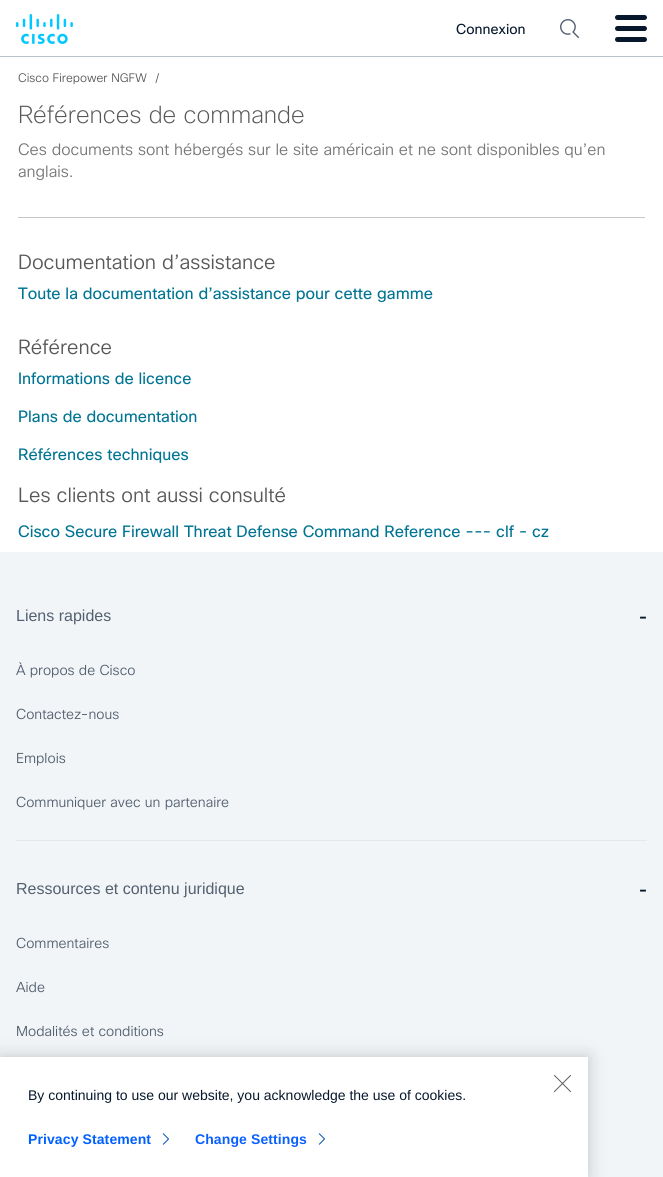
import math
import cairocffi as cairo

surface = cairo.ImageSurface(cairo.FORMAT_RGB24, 663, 1177)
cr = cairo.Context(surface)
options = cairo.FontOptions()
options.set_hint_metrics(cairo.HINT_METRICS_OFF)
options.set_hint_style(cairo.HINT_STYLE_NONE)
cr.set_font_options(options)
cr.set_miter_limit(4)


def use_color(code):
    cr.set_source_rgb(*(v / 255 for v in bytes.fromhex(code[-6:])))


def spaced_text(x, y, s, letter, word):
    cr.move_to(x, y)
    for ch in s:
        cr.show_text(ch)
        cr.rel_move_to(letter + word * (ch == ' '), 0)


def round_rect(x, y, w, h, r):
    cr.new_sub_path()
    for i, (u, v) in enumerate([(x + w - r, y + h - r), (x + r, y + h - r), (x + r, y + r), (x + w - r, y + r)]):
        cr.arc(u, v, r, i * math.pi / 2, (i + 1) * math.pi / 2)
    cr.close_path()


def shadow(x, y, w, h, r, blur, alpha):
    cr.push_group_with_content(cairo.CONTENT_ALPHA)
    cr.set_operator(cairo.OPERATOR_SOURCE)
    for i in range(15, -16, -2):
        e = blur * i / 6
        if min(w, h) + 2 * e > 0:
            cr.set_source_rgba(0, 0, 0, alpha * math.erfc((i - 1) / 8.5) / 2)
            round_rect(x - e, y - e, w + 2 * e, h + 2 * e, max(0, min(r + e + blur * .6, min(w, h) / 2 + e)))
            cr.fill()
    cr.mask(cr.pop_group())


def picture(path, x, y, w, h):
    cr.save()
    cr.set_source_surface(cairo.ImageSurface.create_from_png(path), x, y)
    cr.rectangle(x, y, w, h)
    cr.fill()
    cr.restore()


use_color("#ffffff")
cr.paint()
use_color("#b9c1c9")
cr.rectangle(0, 56, 663, 1)
cr.fill()
picture("img1.png", 16, 14, 57, 30)
cr.select_font_face("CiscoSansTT")
cr.set_font_size(14)
use_color("#07182d")
cr.move_to(456, 34)
cr.show_text("Connexion")
picture("img2.png", 560, 19, 20, 20)
round_rect(615, 15, 32, 5, 2.5)
cr.fill()
round_rect(615, 26, 32, 5, 2.5)
cr.fill()
round_rect(615, 37, 32, 5, 2.5)
cr.fill()
cr.select_font_face("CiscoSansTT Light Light")
cr.set_font_size(12)
use_color("#58585b")
cr.move_to(18, 82)
cr.show_text("Cisco Firepower NGFW")
cr.move_to(155, 82)
cr.show_text("/")
cr.select_font_face("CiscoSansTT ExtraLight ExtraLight")
cr.set_font_size(24)
cr.move_to(18, 123)
cr.show_text("Références de commande")
cr.select_font_face("CiscoSansTT Light Light")
cr.set_font_size(16)
use_color("#767676")
cr.move_to(18, 155)
cr.show_text("Ces documents sont hébergés sur le site américain et ne sont disponibles qu’en")
cr.move_to(18, 177)
cr.show_text("anglais.")
use_color("#c6c7ca")
cr.rectangle(18, 217, 627, 1)
cr.fill()
cr.set_font_size(20)
use_color("#58585b")
cr.move_to(18, 269)
cr.show_text("Documentation d’assistance")
cr.select_font_face("CiscoSansTT")
cr.set_font_size(16)
use_color("#007493")
cr.move_to(18, 299)
cr.show_text("Toute la documentation d’assistance pour cette gamme")
cr.select_font_face("CiscoSansTT Light Light")
cr.set_font_size(20)
use_color("#58585b")
cr.move_to(18, 354)
cr.show_text("Référence")
cr.select_font_face("CiscoSansTT")
cr.set_font_size(16)
use_color("#007493")
cr.move_to(18, 384)
cr.show_text("Informations de licence")
cr.move_to(18, 422)
cr.show_text("Plans de documentation")
cr.move_to(18, 460)
cr.show_text("Références techniques")
cr.select_font_face("CiscoSansTT Light Light")
cr.set_font_size(20)
use_color("#58585b")
cr.move_to(18, 502)
cr.show_text("Les clients ont aussi consulté")
cr.select_font_face("CiscoSansTT")
cr.set_font_size(16)
use_color("#007493")
cr.move_to(18, 537)
cr.show_text("Cisco Secure Firewall Threat Defense Command Reference --- clf - cz")
use_color("#f2f5f7")
cr.rectangle(0, 552, 663, 625)
cr.fill()
cr.select_font_face("Liberation Sans")
use_color("#536070")
cr.move_to(16, 621)
cr.show_text("Liens rapides")
cr.set_font_size(24)
use_color("#07182d")
cr.move_to(639, 624)
cr.show_text("-")
cr.select_font_face("CiscoSansTT Light Light")
cr.set_font_size(14)
use_color("#536070")
cr.move_to(16, 675)
cr.show_text("À propos de Cisco")
cr.move_to(16, 719)
cr.show_text("Contactez-nous")
cr.move_to(16, 763)
cr.show_text("Emplois")
cr.move_to(16, 807)
cr.show_text("Communiquer avec un partenaire")
use_color("#e6e7e8")
cr.rectangle(16, 840, 631, 1)
cr.fill()
cr.select_font_face("Liberation Sans")
cr.set_font_size(16)
use_color("#536070")
cr.move_to(16, 894)
cr.show_text("Ressources et contenu juridique")
cr.set_font_size(24)
use_color("#07182d")
cr.move_to(639, 897)
cr.show_text("-")
cr.select_font_face("CiscoSansTT Light Light")
cr.set_font_size(14)
use_color("#536070")
cr.move_to(16, 948)
cr.show_text("Commentaires")
cr.move_to(16, 992)
cr.show_text("Aide")
cr.move_to(16, 1036)
cr.show_text("Modalités et conditions")
use_color("#000000")
shadow(0, 1057, 588, 120, 0, 9, 0.2)
use_color("#ffffff")
cr.rectangle(0, 1057, 588, 120)
cr.fill()
picture("img3.png", 553, 1074, 19, 19)
cr.select_font_face("Liberation Sans")
use_color("#07182d")
cr.move_to(28, 1100)
cr.show_text("By continuing to use our website, you acknowledge the use of cookies.")
cr.select_font_face("Liberation Sans", cairo.FONT_SLANT_NORMAL, cairo.FONT_WEIGHT_BOLD)
use_color("#0060ff")
spaced_text(28, 1144, "Privacy Statement", 0.1, 0)
picture("img4.png", 162, 1133, 7, 12)
use_color("#0a60ff")
spaced_text(195, 1144, "Change Settings", 0.1, 0)
picture("img4.png", 318, 1133, 7, 12)
surface.write_to_png("result.png")
